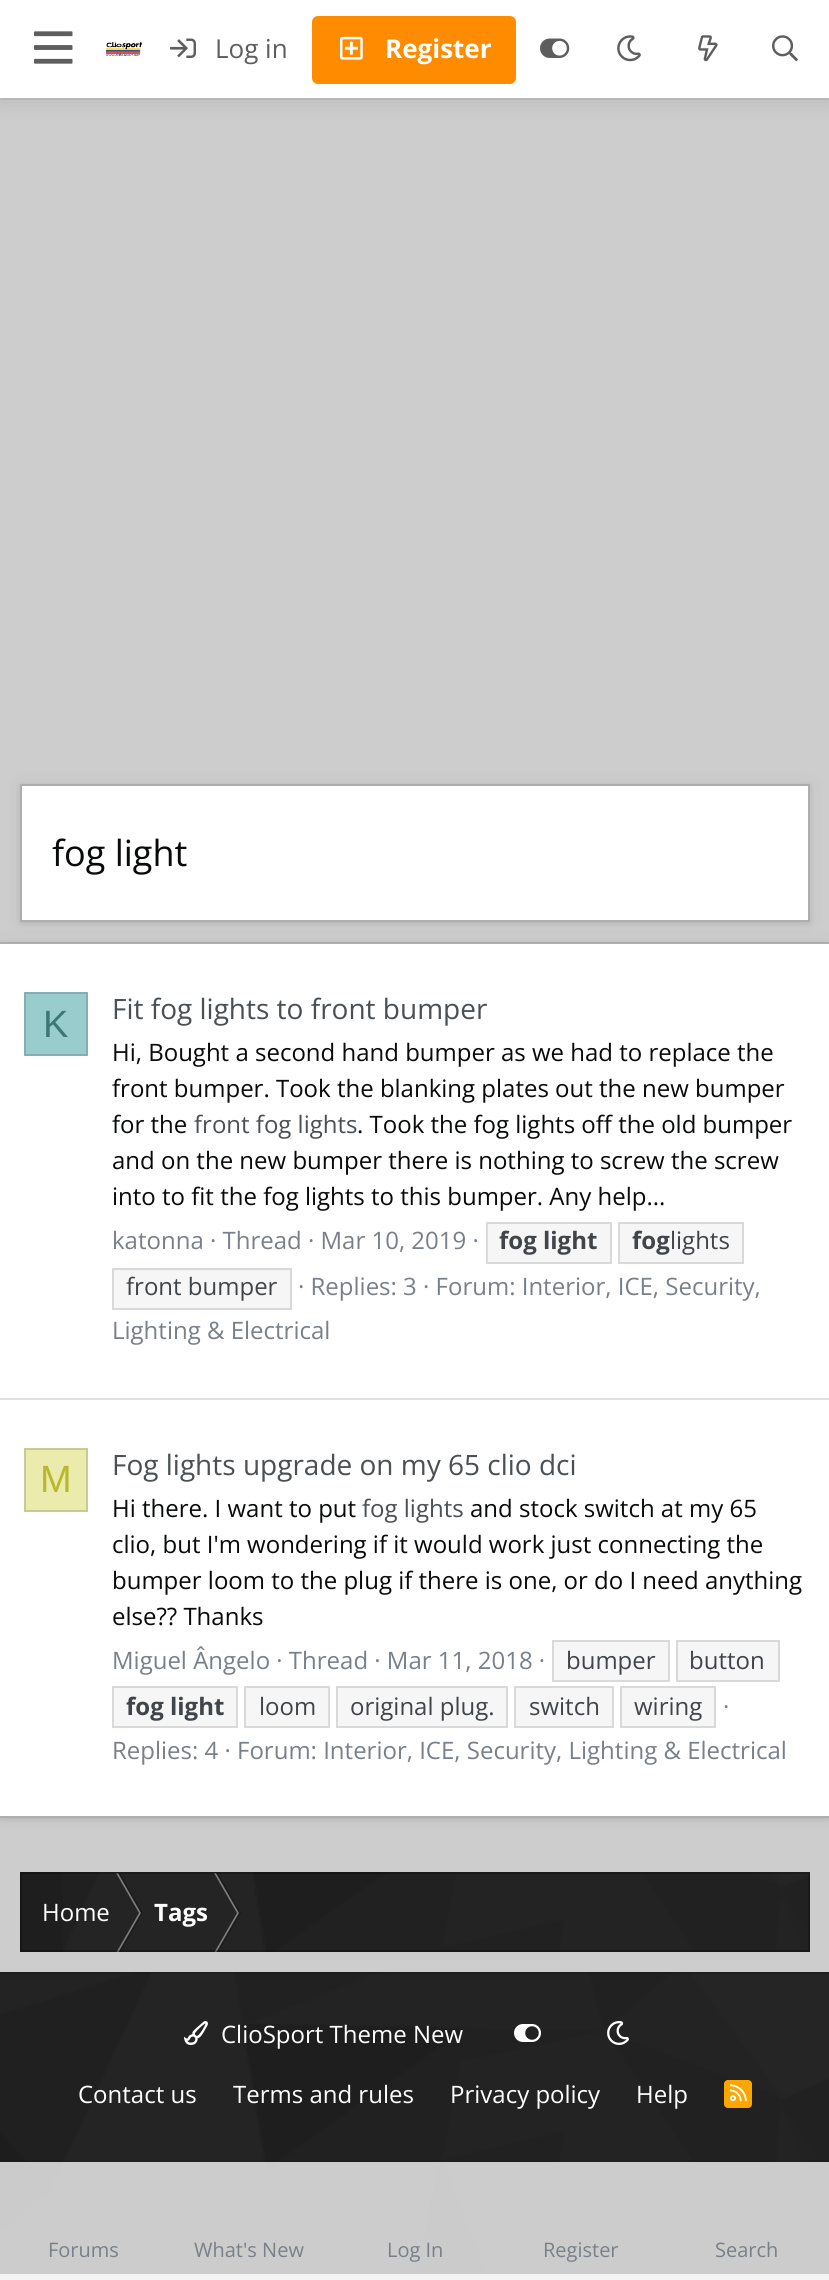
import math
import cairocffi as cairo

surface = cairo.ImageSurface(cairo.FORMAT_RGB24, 829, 2280)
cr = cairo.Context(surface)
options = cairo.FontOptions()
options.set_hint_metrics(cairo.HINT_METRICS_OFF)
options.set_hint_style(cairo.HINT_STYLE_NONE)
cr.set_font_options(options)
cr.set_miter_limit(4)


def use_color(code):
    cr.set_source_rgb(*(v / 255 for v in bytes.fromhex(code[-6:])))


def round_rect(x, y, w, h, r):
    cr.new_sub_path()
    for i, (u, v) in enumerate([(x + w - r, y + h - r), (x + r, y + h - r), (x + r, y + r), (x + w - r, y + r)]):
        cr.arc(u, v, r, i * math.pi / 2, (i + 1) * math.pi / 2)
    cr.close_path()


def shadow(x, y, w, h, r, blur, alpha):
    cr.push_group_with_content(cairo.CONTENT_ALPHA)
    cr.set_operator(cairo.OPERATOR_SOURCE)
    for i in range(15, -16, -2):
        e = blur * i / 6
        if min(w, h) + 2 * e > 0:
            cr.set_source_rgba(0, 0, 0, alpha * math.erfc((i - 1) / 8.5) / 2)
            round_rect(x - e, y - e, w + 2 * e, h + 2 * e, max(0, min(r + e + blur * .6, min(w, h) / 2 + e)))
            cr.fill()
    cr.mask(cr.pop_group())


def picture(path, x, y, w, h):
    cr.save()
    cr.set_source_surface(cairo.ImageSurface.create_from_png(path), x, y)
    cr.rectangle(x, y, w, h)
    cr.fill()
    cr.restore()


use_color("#ededed")
cr.paint()
use_color("#c3c3c3")
cr.rectangle(0, 98, 829, 2)
cr.fill()
use_color("#cdcdcd")
cr.rectangle(0, 100, 829, 1872)
cr.fill()
use_color("#000000")
shadow(0, 4, 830, 98, 0, 10, 0.1)
use_color("#ffffff")
cr.rectangle(0, 0, 829, 98)
cr.fill()
picture("img1.png", 34, 31, 39, 33)
picture("img2.png", 106, 42, 36, 14)
picture("img3.png", 170, 38, 26, 20)
cr.select_font_face("Open Sans")
cr.set_font_size(26)
use_color("#5e5e5e")
cr.move_to(215, 58)
cr.show_text("Log in")
use_color("#ff8c00")
round_rect(312, 16, 204, 68, 6)
cr.fill()
picture("img4.png", 340, 36, 23, 24)
cr.select_font_face("Open Sans", cairo.FONT_SLANT_NORMAL, cairo.FONT_WEIGHT_BOLD)
use_color("#ffffff")
cr.move_to(385, 58)
cr.show_text("Register")
picture("img5.png", 540, 38, 30, 20)
picture("img6.png", 617, 35, 24, 27)
picture("img7.png", 698, 35, 20, 27)
picture("img8.png", 772, 35, 26, 27)
use_color("#000000")
shadow(20, 786, 790, 138, 0, 3, 0.08)
shadow(20, 784, 790, 138, 0, 8, 0.06)
use_color("#ffffff")
cr.rectangle(21, 785, 788, 136)
cr.fill_preserve()
use_color("#aeaeae")
cr.stroke()
cr.select_font_face("Open Sans")
cr.set_font_size(36)
use_color("#090a0a")
cr.move_to(52, 866)
cr.show_text("fog light")
use_color("#000000")
shadow(0, 944, 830, 876, 0, 3, 0.08)
shadow(0, 942, 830, 876, 0, 8, 0.06)
use_color("#ffffff")
cr.rectangle(0, 944, 829, 872)
cr.fill()
use_color("#aeaeae")
cr.rectangle(0, 942, 829, 2)
cr.fill()
cr.rectangle(0, 1816, 829, 2)
cr.fill()
use_color("#99cccc")
round_rect(24, 992, 64, 64, 1)
cr.fill()
cr.rectangle(25, 993, 62, 62)
cr.set_source_rgba(0.035, 0.039, 0.039, 0.15)
cr.stroke()
cr.select_font_face("Liberation Sans")
cr.set_font_size(38)
use_color("#3c7777")
cr.move_to(43, 1037)
cr.show_text("K")
cr.select_font_face("Open Sans")
cr.set_font_size(28)
use_color("#4a5054")
cr.move_to(112, 1019)
cr.show_text("Fit fog lights to front bumper")
cr.set_font_size(24)
use_color("#090a0a")
cr.move_to(112, 1061)
cr.show_text("Hi, Bought a second hand bumper as we had to replace the")
cr.move_to(112, 1097)
cr.show_text("front bumper. Took the blanking plates out the new bumper")
cr.move_to(112, 1133)
cr.show_text("for the")
use_color("#4a5054")
cr.move_to(194, 1133)
cr.show_text("front fog lights")
use_color("#090a0a")
cr.move_to(357, 1133)
cr.show_text(". Took the fog lights off the old bumper")
cr.move_to(112, 1169)
cr.show_text("and on the new bumper there is nothing to screw the screw")
cr.move_to(112, 1205)
cr.show_text("into to fit the fog lights to this bumper. Any help...")
use_color("#79808a")
cr.move_to(112, 1249)
cr.show_text("katonna · Thread · Mar 10, 2019 ·")
use_color("#f6f6f6")
cr.rectangle(487, 1223, 124, 40)
cr.fill_preserve()
use_color("#d9d9d9")
cr.stroke()
cr.select_font_face("Open Sans", cairo.FONT_SLANT_NORMAL, cairo.FONT_WEIGHT_BOLD)
use_color("#41454a")
cr.move_to(499, 1249)
cr.show_text("fog light")
use_color("#f6f6f6")
cr.rectangle(619, 1223, 124, 40)
cr.fill_preserve()
use_color("#d9d9d9")
cr.stroke()
use_color("#41454a")
cr.move_to(632, 1249)
cr.show_text("fog")
cr.select_font_face("Open Sans")
cr.move_to(670, 1249)
cr.show_text("lights")
use_color("#f6f6f6")
cr.rectangle(113, 1269, 178, 40)
cr.fill_preserve()
use_color("#d9d9d9")
cr.stroke()
use_color("#41454a")
cr.move_to(126, 1295)
cr.show_text("front bumper")
use_color("#79808a")
cr.move_to(298, 1295)
cr.show_text("· Replies: 3 · Forum: Interior, ICE, Security,")
cr.move_to(112, 1339)
cr.show_text("Lighting & Electrical")
use_color("#e0e0e0")
cr.rectangle(0, 1398, 829, 2)
cr.fill()
use_color("#ebebad")
round_rect(24, 1448, 64, 64, 1)
cr.fill()
cr.rectangle(25, 1449, 62, 62)
cr.set_source_rgba(0.035, 0.039, 0.039, 0.15)
cr.stroke()
cr.select_font_face("Liberation Sans")
cr.set_font_size(38)
use_color("#b8b82e")
cr.move_to(40, 1492)
cr.show_text("M")
cr.select_font_face("Open Sans")
cr.set_font_size(28)
use_color("#4a5054")
cr.move_to(112, 1475)
cr.show_text("Fog lights upgrade on my 65 clio dci")
cr.set_font_size(24)
use_color("#090a0a")
cr.move_to(112, 1517)
cr.show_text("Hi there. I want to put")
use_color("#4a5054")
cr.move_to(362, 1517)
cr.show_text("fog lights")
use_color("#090a0a")
cr.move_to(470, 1517)
cr.show_text("and stock switch at my 65")
cr.move_to(112, 1553)
cr.show_text("clio, but I'm wondering if it would work just connecting the")
cr.move_to(112, 1589)
cr.show_text("bumper loom to the plug if there is one, or do I need anything")
cr.move_to(112, 1625)
cr.show_text("else?? Thanks")
use_color("#79808a")
cr.move_to(112, 1669)
cr.show_text("Miguel Ângelo · Thread · Mar 11, 2018 ·")
use_color("#f6f6f6")
cr.rectangle(553, 1641, 116, 40)
cr.fill_preserve()
use_color("#d9d9d9")
cr.stroke()
use_color("#41454a")
cr.move_to(566, 1669)
cr.show_text("bumper")
use_color("#f6f6f6")
cr.rectangle(677, 1641, 102, 40)
cr.fill_preserve()
use_color("#d9d9d9")
cr.stroke()
use_color("#41454a")
cr.move_to(689, 1669)
cr.show_text("button")
use_color("#f6f6f6")
cr.rectangle(113, 1687, 124, 40)
cr.fill_preserve()
use_color("#d9d9d9")
cr.stroke()
cr.select_font_face("Open Sans", cairo.FONT_SLANT_NORMAL, cairo.FONT_WEIGHT_BOLD)
use_color("#41454a")
cr.move_to(126, 1715)
cr.show_text("fog light")
use_color("#f6f6f6")
cr.rectangle(245, 1687, 84, 40)
cr.fill_preserve()
use_color("#d9d9d9")
cr.stroke()
cr.select_font_face("Open Sans")
use_color("#41454a")
cr.move_to(259, 1715)
cr.show_text("loom")
use_color("#f6f6f6")
cr.rectangle(337, 1687, 170, 40)
cr.fill_preserve()
use_color("#d9d9d9")
cr.stroke()
use_color("#41454a")
cr.move_to(350, 1715)
cr.show_text("original plug.")
use_color("#f6f6f6")
cr.rectangle(515, 1687, 98, 40)
cr.fill_preserve()
use_color("#d9d9d9")
cr.stroke()
use_color("#41454a")
cr.move_to(529, 1715)
cr.show_text("switch")
use_color("#f6f6f6")
cr.rectangle(621, 1687, 94, 40)
cr.fill_preserve()
use_color("#d9d9d9")
cr.stroke()
use_color("#41454a")
cr.move_to(634, 1715)
cr.show_text("wiring")
use_color("#79808a")
cr.move_to(723, 1715)
cr.show_text("·")
cr.move_to(112, 1759)
cr.show_text("Replies: 4 · Forum: Interior, ICE, Security, Lighting & Electrical")
use_color("#1e1e1e")
cr.rectangle(20, 1872, 790, 80)
cr.fill()
picture("img9.png", 63, 1872, 747, 80)
use_color("#7c7c7c")
cr.new_path()
cr.move_to(116, 1873)
cr.line_to(118, 1873)
cr.line_to(141, 1913)
cr.line_to(139, 1913)
cr.close_path()
cr.fill()
cr.set_source_rgba(0, 0, 0, 0.25)
cr.new_path()
cr.move_to(118, 1873)
cr.line_to(120, 1873)
cr.line_to(143, 1913)
cr.line_to(141, 1913)
cr.close_path()
cr.fill()
cr.save()
cr.rectangle(20, 1872, 790, 80)
cr.clip()
use_color("#7c7c7c")
cr.new_path()
cr.move_to(139, 1913)
cr.line_to(141, 1913)
cr.line_to(118, 1953)
cr.line_to(116, 1953)
cr.close_path()
cr.fill()
cr.set_source_rgba(0, 0, 0, 0.25)
cr.new_path()
cr.move_to(141, 1913)
cr.line_to(143, 1913)
cr.line_to(120, 1953)
cr.line_to(118, 1953)
cr.close_path()
cr.fill()
cr.restore()
use_color("#7c7c7c")
cr.new_path()
cr.move_to(214, 1873)
cr.line_to(216, 1873)
cr.line_to(239, 1913)
cr.line_to(237, 1913)
cr.close_path()
cr.fill()
cr.set_source_rgba(0, 0, 0, 0.25)
cr.new_path()
cr.move_to(216, 1873)
cr.line_to(218, 1873)
cr.line_to(241, 1913)
cr.line_to(239, 1913)
cr.close_path()
cr.fill()
cr.save()
cr.rectangle(20, 1872, 790, 80)
cr.clip()
use_color("#7c7c7c")
cr.new_path()
cr.move_to(237, 1913)
cr.line_to(239, 1913)
cr.line_to(216, 1953)
cr.line_to(214, 1953)
cr.close_path()
cr.fill()
cr.set_source_rgba(0, 0, 0, 0.25)
cr.new_path()
cr.move_to(239, 1913)
cr.line_to(241, 1913)
cr.line_to(218, 1953)
cr.line_to(216, 1953)
cr.close_path()
cr.fill()
cr.restore()
cr.rectangle(21, 1873, 788, 78)
cr.set_source_rgba(0.008, 0.012, 0.012, 0.25)
cr.stroke()
use_color("#ffffff")
cr.move_to(42, 1921)
cr.show_text("Home")
cr.select_font_face("Open Sans", cairo.FONT_SLANT_NORMAL, cairo.FONT_WEIGHT_BOLD)
cr.move_to(154, 1921)
cr.show_text("Tags")
use_color("#1e1e1e")
cr.rectangle(0, 1972, 829, 302)
cr.fill()
picture("img10.png", 0, 1972, 829, 302)
cr.set_source_rgba(0, 0, 0, 0.15)
cr.rectangle(0, 1972, 829, 2)
cr.fill()
picture("img11.png", 184, 2021, 24, 24)
cr.select_font_face("Open Sans")
use_color("#ffffff")
cr.move_to(221, 2043)
cr.show_text("ClioSport Theme New")
picture("img12.png", 514, 2024, 27, 18)
picture("img13.png", 607, 2021, 22, 24)
cr.move_to(78, 2103)
cr.show_text("Contact us")
cr.move_to(233, 2103)
cr.show_text("Terms and rules")
cr.move_to(450, 2103)
cr.show_text("Privacy policy")
cr.move_to(636, 2103)
cr.show_text("Help")
use_color("#ffa500")
round_rect(724, 2080, 28, 28, 4)
cr.fill()
picture("img14.png", 730, 2084, 17, 18)
cr.set_source_rgba(0, 0, 0, 0.1)
cr.rectangle(0, 2160, 829, 2)
cr.fill()
cr.set_source_rgba(0.965, 0.965, 0.965, 0.8)
cr.rectangle(0, 2162, 829, 118)
cr.fill()
cr.set_font_size(20)
use_color("#79808a")
cr.move_to(48, 2257)
cr.show_text("Forums")
cr.move_to(194, 2257)
cr.show_text("What's New")
cr.move_to(387, 2257)
cr.show_text("Log In")
cr.move_to(543, 2257)
cr.show_text("Register")
cr.move_to(715, 2257)
cr.show_text("Search")
surface.write_to_png("result.png")
